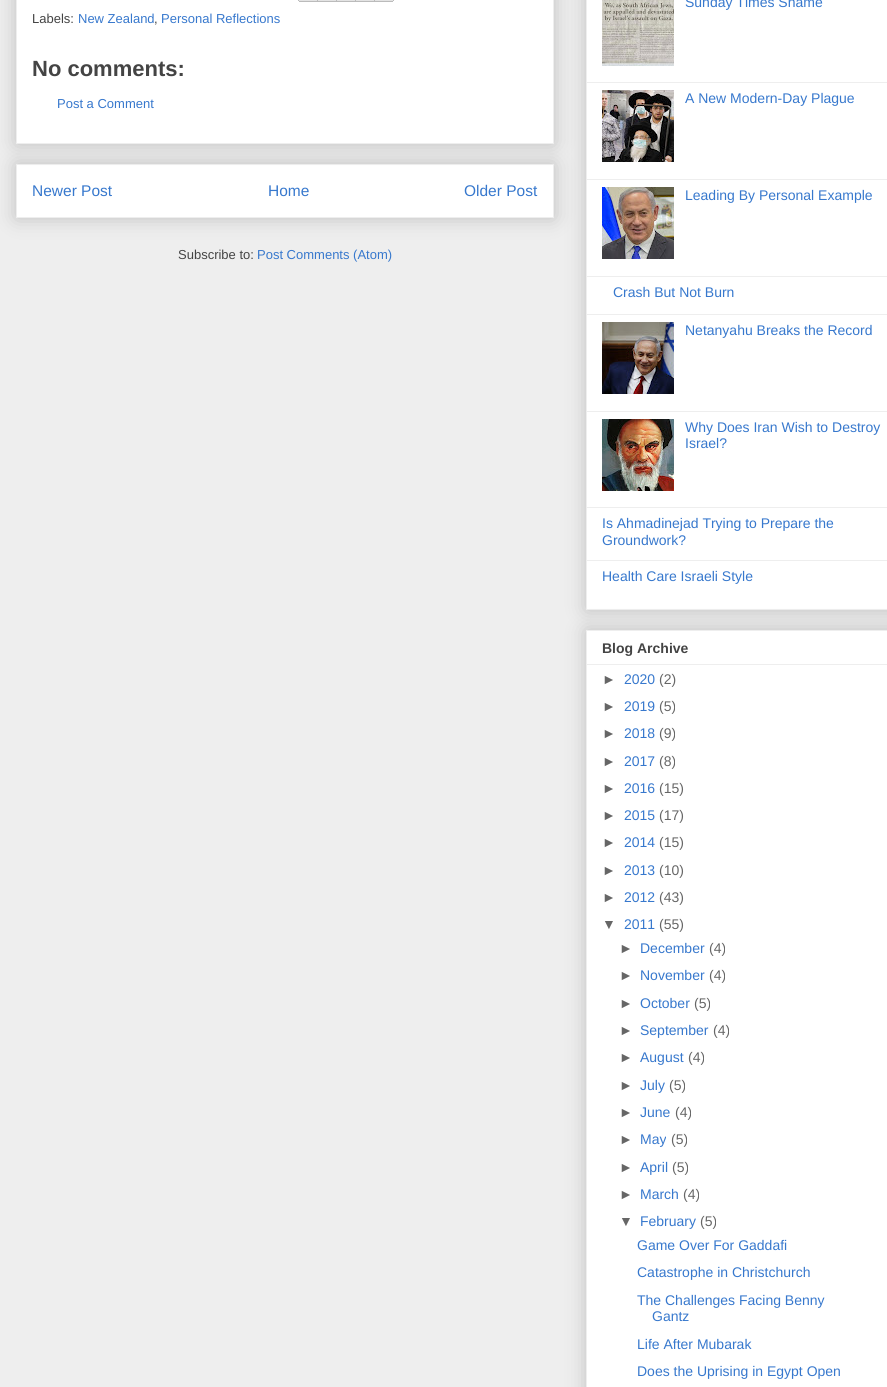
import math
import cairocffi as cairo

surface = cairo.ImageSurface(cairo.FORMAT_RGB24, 887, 1387)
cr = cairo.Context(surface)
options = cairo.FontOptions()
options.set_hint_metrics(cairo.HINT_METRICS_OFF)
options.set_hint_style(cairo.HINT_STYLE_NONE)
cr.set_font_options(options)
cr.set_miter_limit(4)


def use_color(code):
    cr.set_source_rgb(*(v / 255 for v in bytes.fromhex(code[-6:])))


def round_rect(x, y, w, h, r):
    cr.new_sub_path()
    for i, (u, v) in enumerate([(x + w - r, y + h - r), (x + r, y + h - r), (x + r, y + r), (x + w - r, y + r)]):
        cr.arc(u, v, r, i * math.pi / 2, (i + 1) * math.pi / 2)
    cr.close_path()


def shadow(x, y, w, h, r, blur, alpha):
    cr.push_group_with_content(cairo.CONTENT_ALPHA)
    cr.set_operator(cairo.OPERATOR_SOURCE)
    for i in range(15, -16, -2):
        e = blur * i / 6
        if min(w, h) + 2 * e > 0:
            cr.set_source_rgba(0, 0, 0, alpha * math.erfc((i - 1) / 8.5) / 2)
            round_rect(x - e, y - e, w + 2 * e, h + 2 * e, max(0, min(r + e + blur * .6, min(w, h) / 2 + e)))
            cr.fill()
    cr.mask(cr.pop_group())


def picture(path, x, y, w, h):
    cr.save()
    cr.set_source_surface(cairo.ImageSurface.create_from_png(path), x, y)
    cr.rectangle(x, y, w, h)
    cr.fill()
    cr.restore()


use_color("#eeeeee")
cr.paint()
use_color("#000000")
shadow(16, 164, 538, 54, 0, 10, 0.2)
use_color("#ffffff")
cr.rectangle(16.5, 164.5, 537, 53)
cr.fill_preserve()
use_color("#eeeeee")
cr.set_line_width(1)
cr.stroke()
use_color("#000000")
shadow(16, -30, 538, 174, 0, 10, 0.2)
use_color("#ffffff")
cr.rectangle(16.5, -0.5, 537, 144)
cr.fill_preserve()
use_color("#eeeeee")
cr.stroke()
picture("img1.png", 298, 0, 20, 2)
picture("img2.png", 318, 0, 19, 2)
picture("img2.png", 337, 0, 19, 2)
picture("img2.png", 356, 0, 19, 2)
picture("img3.png", 375, 0, 19, 2)
cr.select_font_face("Liberation Sans")
cr.set_font_size(13)
use_color("#444444")
cr.move_to(32, 23)
cr.show_text("Labels:")
use_color("#3778cd")
cr.move_to(78, 23)
cr.show_text("New Zealand")
use_color("#444444")
cr.move_to(154, 23)
cr.show_text(",")
use_color("#3778cd")
cr.move_to(161, 23)
cr.show_text("Personal Reflections")
cr.select_font_face("Liberation Sans", cairo.FONT_SLANT_NORMAL, cairo.FONT_WEIGHT_BOLD)
cr.set_font_size(22)
use_color("#444444")
cr.move_to(32, 76)
cr.show_text("No comments:")
cr.select_font_face("Liberation Sans")
cr.set_font_size(13)
use_color("#3778cd")
cr.move_to(57, 108)
cr.show_text("Post a Comment")
cr.set_font_size(15.5)
cr.move_to(32, 196)
cr.show_text("Newer Post")
cr.move_to(268, 196)
cr.show_text("Home")
cr.move_to(464, 196)
cr.show_text("Older Post")
cr.set_font_size(13)
use_color("#444444")
cr.move_to(178, 259)
cr.show_text("Subscribe to:")
use_color("#3778cd")
cr.move_to(257, 259)
cr.show_text("Post Comments (Atom)")
use_color("#000000")
shadow(586, -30, 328, 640, 0, 10, 0.2)
use_color("#ffffff")
cr.rectangle(586.5, -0.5, 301, 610)
cr.fill_preserve()
use_color("#eeeeee")
cr.stroke()
picture("img4.png", 602, 0, 72, 66)
cr.set_font_size(14)
use_color("#3778cd")
cr.move_to(685, 7)
cr.show_text("Sunday Times Shame")
use_color("#eeeeee")
cr.rectangle(587, 82, 300, 1)
cr.fill()
picture("img5.png", 602, 90, 72, 72)
use_color("#3778cd")
cr.move_to(685, 103)
cr.show_text("A New Modern-Day Plague")
use_color("#eeeeee")
cr.rectangle(587, 179, 300, 1)
cr.fill()
picture("img6.png", 602, 187, 72, 72)
use_color("#3778cd")
cr.move_to(685, 200)
cr.show_text("Leading By Personal Example")
use_color("#eeeeee")
cr.rectangle(587, 276, 300, 1)
cr.fill()
use_color("#3778cd")
cr.move_to(613, 297)
cr.show_text("Crash But Not Burn")
use_color("#eeeeee")
cr.rectangle(587, 314, 300, 1)
cr.fill()
picture("img7.png", 602, 322, 72, 72)
use_color("#3778cd")
cr.move_to(685, 335)
cr.show_text("Netanyahu Breaks the Record")
use_color("#eeeeee")
cr.rectangle(587, 411, 300, 1)
cr.fill()
picture("img8.png", 602, 419, 72, 72)
use_color("#3778cd")
cr.move_to(685, 432)
cr.show_text("Why Does Iran Wish to Destroy")
cr.move_to(685, 448)
cr.show_text("Israel?")
use_color("#eeeeee")
cr.rectangle(587, 507, 300, 1)
cr.fill()
use_color("#3778cd")
cr.move_to(602, 528)
cr.show_text("Is Ahmadinejad Trying to Prepare the")
cr.move_to(602, 545)
cr.show_text("Groundwork?")
use_color("#eeeeee")
cr.rectangle(587, 560, 300, 1)
cr.fill()
use_color("#3778cd")
cr.move_to(602, 581)
cr.show_text("Health Care Israeli Style")
use_color("#000000")
shadow(586, 630, 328, 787, 0, 10, 0.2)
use_color("#ffffff")
cr.rectangle(586.5, 630.5, 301, 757)
cr.fill_preserve()
use_color("#eeeeee")
cr.stroke()
cr.select_font_face("Liberation Sans", cairo.FONT_SLANT_NORMAL, cairo.FONT_WEIGHT_BOLD)
use_color("#444444")
cr.move_to(602, 653)
cr.show_text("Blog Archive")
use_color("#eeeeee")
cr.rectangle(587, 664, 300, 1)
cr.fill()
cr.select_font_face("Liberation Sans")
use_color("#666666")
cr.move_to(602, 684)
cr.show_text("►")
use_color("#3778cd")
cr.move_to(624, 684)
cr.show_text("2020")
use_color("#666666")
cr.move_to(659, 684)
cr.show_text("(2)")
cr.move_to(602, 711)
cr.show_text("►")
use_color("#3778cd")
cr.move_to(624, 711)
cr.show_text("2019")
use_color("#666666")
cr.move_to(659, 711)
cr.show_text("(5)")
cr.move_to(602, 738)
cr.show_text("►")
use_color("#3778cd")
cr.move_to(624, 738)
cr.show_text("2018")
use_color("#666666")
cr.move_to(659, 738)
cr.show_text("(9)")
cr.move_to(602, 766)
cr.show_text("►")
use_color("#3778cd")
cr.move_to(624, 766)
cr.show_text("2017")
use_color("#666666")
cr.move_to(659, 766)
cr.show_text("(8)")
cr.move_to(602, 793)
cr.show_text("►")
use_color("#3778cd")
cr.move_to(624, 793)
cr.show_text("2016")
use_color("#666666")
cr.move_to(659, 793)
cr.show_text("(15)")
cr.move_to(602, 820)
cr.show_text("►")
use_color("#3778cd")
cr.move_to(624, 820)
cr.show_text("2015")
use_color("#666666")
cr.move_to(659, 820)
cr.show_text("(17)")
cr.move_to(602, 847)
cr.show_text("►")
use_color("#3778cd")
cr.move_to(624, 847)
cr.show_text("2014")
use_color("#666666")
cr.move_to(659, 847)
cr.show_text("(15)")
cr.move_to(602, 875)
cr.show_text("►")
use_color("#3778cd")
cr.move_to(624, 875)
cr.show_text("2013")
use_color("#666666")
cr.move_to(659, 875)
cr.show_text("(10)")
cr.move_to(602, 902)
cr.show_text("►")
use_color("#3778cd")
cr.move_to(624, 902)
cr.show_text("2012")
use_color("#666666")
cr.move_to(659, 902)
cr.show_text("(43)")
cr.move_to(602, 929)
cr.show_text("▼")
use_color("#3778cd")
cr.move_to(624, 929)
cr.show_text("2011")
use_color("#666666")
cr.move_to(659, 929)
cr.show_text("(55)")
cr.move_to(619, 953)
cr.show_text("►")
use_color("#3778cd")
cr.move_to(640, 953)
cr.show_text("December")
use_color("#666666")
cr.move_to(709, 953)
cr.show_text("(4)")
cr.move_to(619, 980)
cr.show_text("►")
use_color("#3778cd")
cr.move_to(640, 980)
cr.show_text("November")
use_color("#666666")
cr.move_to(709, 980)
cr.show_text("(4)")
cr.move_to(619, 1008)
cr.show_text("►")
use_color("#3778cd")
cr.move_to(640, 1008)
cr.show_text("October")
use_color("#666666")
cr.move_to(694, 1008)
cr.show_text("(5)")
cr.move_to(619, 1035)
cr.show_text("►")
use_color("#3778cd")
cr.move_to(640, 1035)
cr.show_text("September")
use_color("#666666")
cr.move_to(713, 1035)
cr.show_text("(4)")
cr.move_to(619, 1062)
cr.show_text("►")
use_color("#3778cd")
cr.move_to(640, 1062)
cr.show_text("August")
use_color("#666666")
cr.move_to(688, 1062)
cr.show_text("(4)")
cr.move_to(619, 1090)
cr.show_text("►")
use_color("#3778cd")
cr.move_to(640, 1090)
cr.show_text("July")
use_color("#666666")
cr.move_to(669, 1090)
cr.show_text("(5)")
cr.move_to(619, 1117)
cr.show_text("►")
use_color("#3778cd")
cr.move_to(640, 1117)
cr.show_text("June")
use_color("#666666")
cr.move_to(675, 1117)
cr.show_text("(4)")
cr.move_to(619, 1144)
cr.show_text("►")
use_color("#3778cd")
cr.move_to(640, 1144)
cr.show_text("May")
use_color("#666666")
cr.move_to(671, 1144)
cr.show_text("(5)")
cr.move_to(619, 1172)
cr.show_text("►")
use_color("#3778cd")
cr.move_to(640, 1172)
cr.show_text("April")
use_color("#666666")
cr.move_to(672, 1172)
cr.show_text("(5)")
cr.move_to(619, 1199)
cr.show_text("►")
use_color("#3778cd")
cr.move_to(640, 1199)
cr.show_text("March")
use_color("#666666")
cr.move_to(683, 1199)
cr.show_text("(4)")
cr.move_to(619, 1226)
cr.show_text("▼")
use_color("#3778cd")
cr.move_to(640, 1226)
cr.show_text("February")
use_color("#666666")
cr.move_to(700, 1226)
cr.show_text("(5)")
use_color("#3778cd")
cr.move_to(637, 1250)
cr.show_text("Game Over For Gaddafi")
cr.move_to(637, 1277)
cr.show_text("Catastrophe in Christchurch")
cr.move_to(637, 1305)
cr.show_text("The Challenges Facing Benny")
cr.move_to(652, 1321)
cr.show_text("Gantz")
cr.move_to(637, 1349)
cr.show_text("Life After Mubarak")
cr.move_to(637, 1376)
cr.show_text("Does the Uprising in Egypt Open")
surface.write_to_png("result.png")
